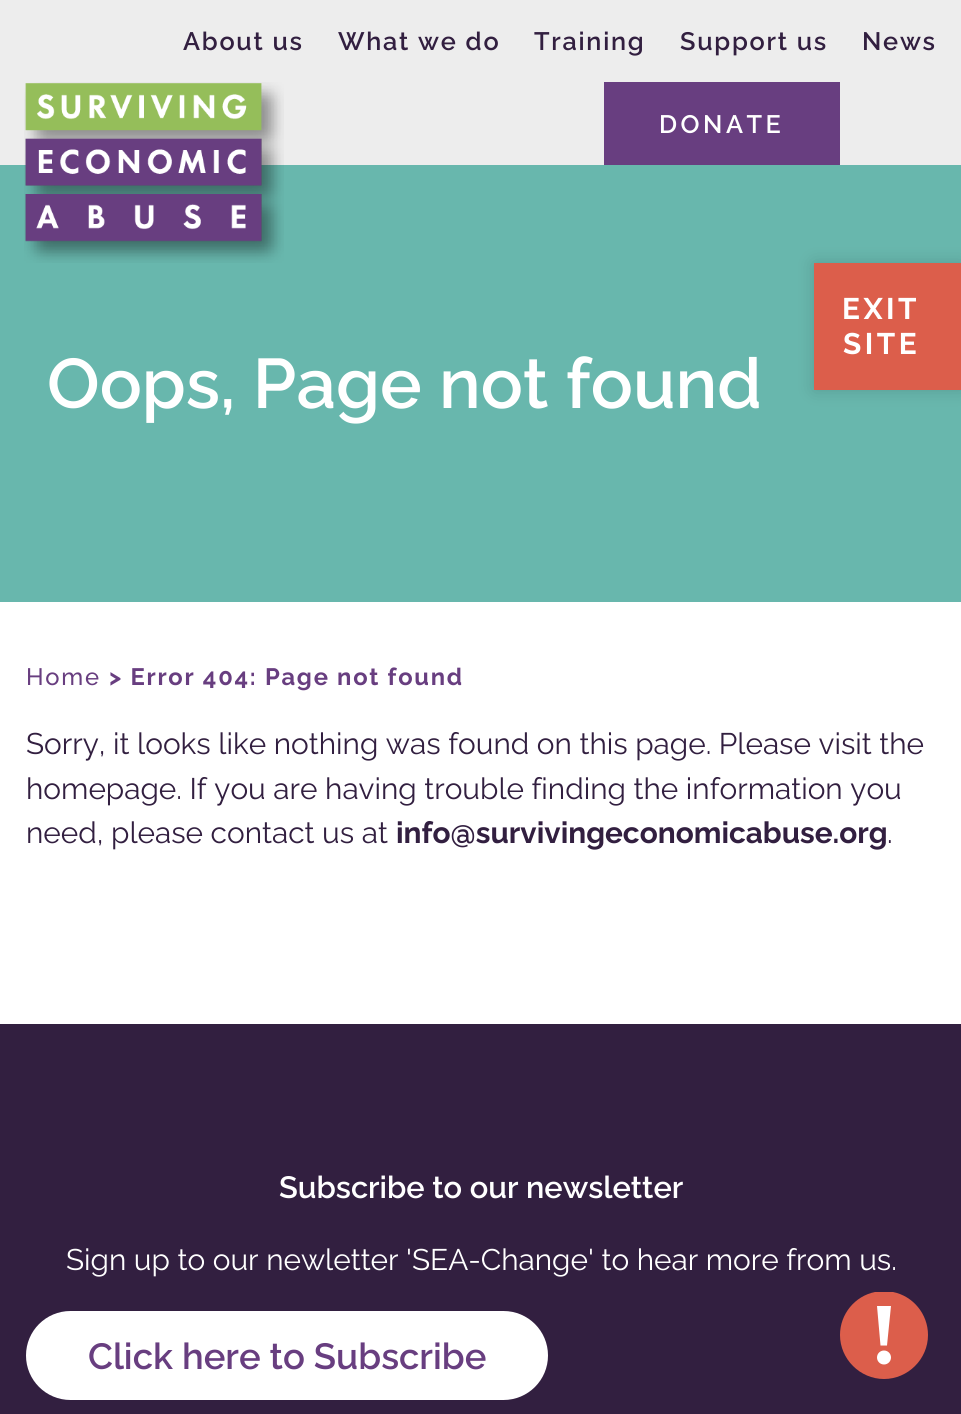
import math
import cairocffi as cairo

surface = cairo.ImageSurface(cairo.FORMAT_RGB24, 961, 1414)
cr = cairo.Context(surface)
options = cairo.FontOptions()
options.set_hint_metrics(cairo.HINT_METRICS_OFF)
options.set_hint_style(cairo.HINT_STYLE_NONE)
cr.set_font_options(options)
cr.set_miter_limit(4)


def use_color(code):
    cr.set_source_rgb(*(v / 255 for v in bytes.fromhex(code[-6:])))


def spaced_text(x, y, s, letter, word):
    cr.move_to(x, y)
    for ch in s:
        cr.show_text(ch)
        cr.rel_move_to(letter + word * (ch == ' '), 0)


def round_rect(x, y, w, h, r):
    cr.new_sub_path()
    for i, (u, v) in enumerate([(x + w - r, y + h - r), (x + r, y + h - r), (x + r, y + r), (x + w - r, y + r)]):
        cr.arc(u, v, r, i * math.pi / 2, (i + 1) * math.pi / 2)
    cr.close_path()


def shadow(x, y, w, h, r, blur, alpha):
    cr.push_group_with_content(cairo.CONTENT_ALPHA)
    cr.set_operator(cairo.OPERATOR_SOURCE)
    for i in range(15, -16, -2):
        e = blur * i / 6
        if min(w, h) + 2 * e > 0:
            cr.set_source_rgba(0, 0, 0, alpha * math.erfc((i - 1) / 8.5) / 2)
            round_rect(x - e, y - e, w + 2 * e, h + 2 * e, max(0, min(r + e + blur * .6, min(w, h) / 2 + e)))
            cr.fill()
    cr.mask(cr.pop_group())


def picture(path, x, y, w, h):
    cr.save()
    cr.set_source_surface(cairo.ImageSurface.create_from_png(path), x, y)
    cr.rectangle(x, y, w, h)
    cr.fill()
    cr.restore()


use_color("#ffffff")
cr.paint()
use_color("#ededed")
cr.rectangle(0, 0, 961, 165)
cr.fill()
use_color("#68b7ad")
cr.rectangle(0, 165, 961, 437)
cr.fill()
picture("img1.png", 24, 82, 260, 181)
cr.select_font_face("Raleway SemiBold")
cr.set_font_size(25.25)
use_color("#321f40")
spaced_text(183, 50, "About us", 1.75, 0)
spaced_text(338, 50, "What we do", 1.75, 0)
spaced_text(534, 50, "Training", 1.75, 0)
spaced_text(680, 50, "Support us", 1.75, 0)
spaced_text(862, 50, "News", 1.75, 0)
use_color("#683e80")
cr.rectangle(604, 82, 236, 83)
cr.fill()
use_color("#ffffff")
spaced_text(659, 133, "DONATE", 3.5, 0)
use_color("#000000")
shadow(814, 263, 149, 127, 0, 9, 0.15)
use_color("#dc5e4b")
cr.rectangle(814, 263, 147, 127)
cr.fill()
cr.select_font_face("Raleway", cairo.FONT_SLANT_NORMAL, cairo.FONT_WEIGHT_BOLD)
cr.set_font_size(29.75)
use_color("#ffffff")
spaced_text(842, 319, "EXIT", 3.5, 0)
spaced_text(843, 354, "SITE", 3.5, 0)
cr.select_font_face("Raleway SemiBold")
cr.set_font_size(70)
cr.move_to(47, 408)
cr.show_text("Oops, Page not found")
cr.select_font_face("Raleway Medium")
cr.set_font_size(23.75)
use_color("#683e80")
spaced_text(26, 685, "Home", 1.75, 0)
cr.select_font_face("Raleway", cairo.FONT_SLANT_NORMAL, cairo.FONT_WEIGHT_BOLD)
spaced_text(109, 685, "> Error 404: Page not found", 1.75, 0)
cr.select_font_face("Raleway")
cr.set_font_size(29.75)
use_color("#321f40")
cr.move_to(26, 754)
cr.show_text("Sorry, it looks like nothing was found on this page. Please visit the")
cr.move_to(26, 799)
cr.show_text("homepage. If you are having trouble finding the information you")
cr.move_to(26, 843)
cr.show_text("need, please contact us at")
cr.select_font_face("Raleway", cairo.FONT_SLANT_NORMAL, cairo.FONT_WEIGHT_BOLD)
cr.move_to(396, 843)
cr.show_text("info@survivingeconomicabuse.org")
cr.select_font_face("Raleway")
cr.move_to(887, 843)
cr.show_text(".")
cr.rectangle(0, 1024, 961, 390)
cr.fill()
cr.select_font_face("Raleway SemiBold")
cr.set_font_size(30.75)
use_color("#ffffff")
cr.move_to(279, 1198)
cr.show_text("Subscribe to our newsletter")
cr.select_font_face("Raleway")
cr.set_font_size(29.75)
cr.move_to(66, 1270)
cr.show_text("Sign up to our newletter 'SEA-Change' to hear more from us.")
round_rect(26, 1311, 522, 89, 44.5)
cr.fill()
cr.select_font_face("Raleway SemiBold")
cr.set_font_size(36.4)
use_color("#683e80")
cr.move_to(88, 1369)
cr.show_text("Click here to Subscribe")
use_color("#dc5e4b")
cr.new_path()
cr.move_to(893, 1292)
cr.curve_to(913, 1296, 928, 1314, 928, 1335)
cr.curve_to(928, 1359, 908, 1379, 884, 1379)
cr.curve_to(860, 1379, 840, 1359, 840, 1335)
cr.curve_to(840, 1314, 855, 1296, 875, 1292)
cr.close_path()
cr.fill()
use_color("#ffffff")
cr.new_path()
cr.move_to(877, 1306)
cr.line_to(891, 1306)
cr.line_to(887, 1345.5)
cr.line_to(880.5, 1345.5)
cr.close_path()
cr.fill()
cr.arc(884, 1357.5, 7, 0, 2 * math.pi)
cr.fill()
surface.write_to_png("result.png")
